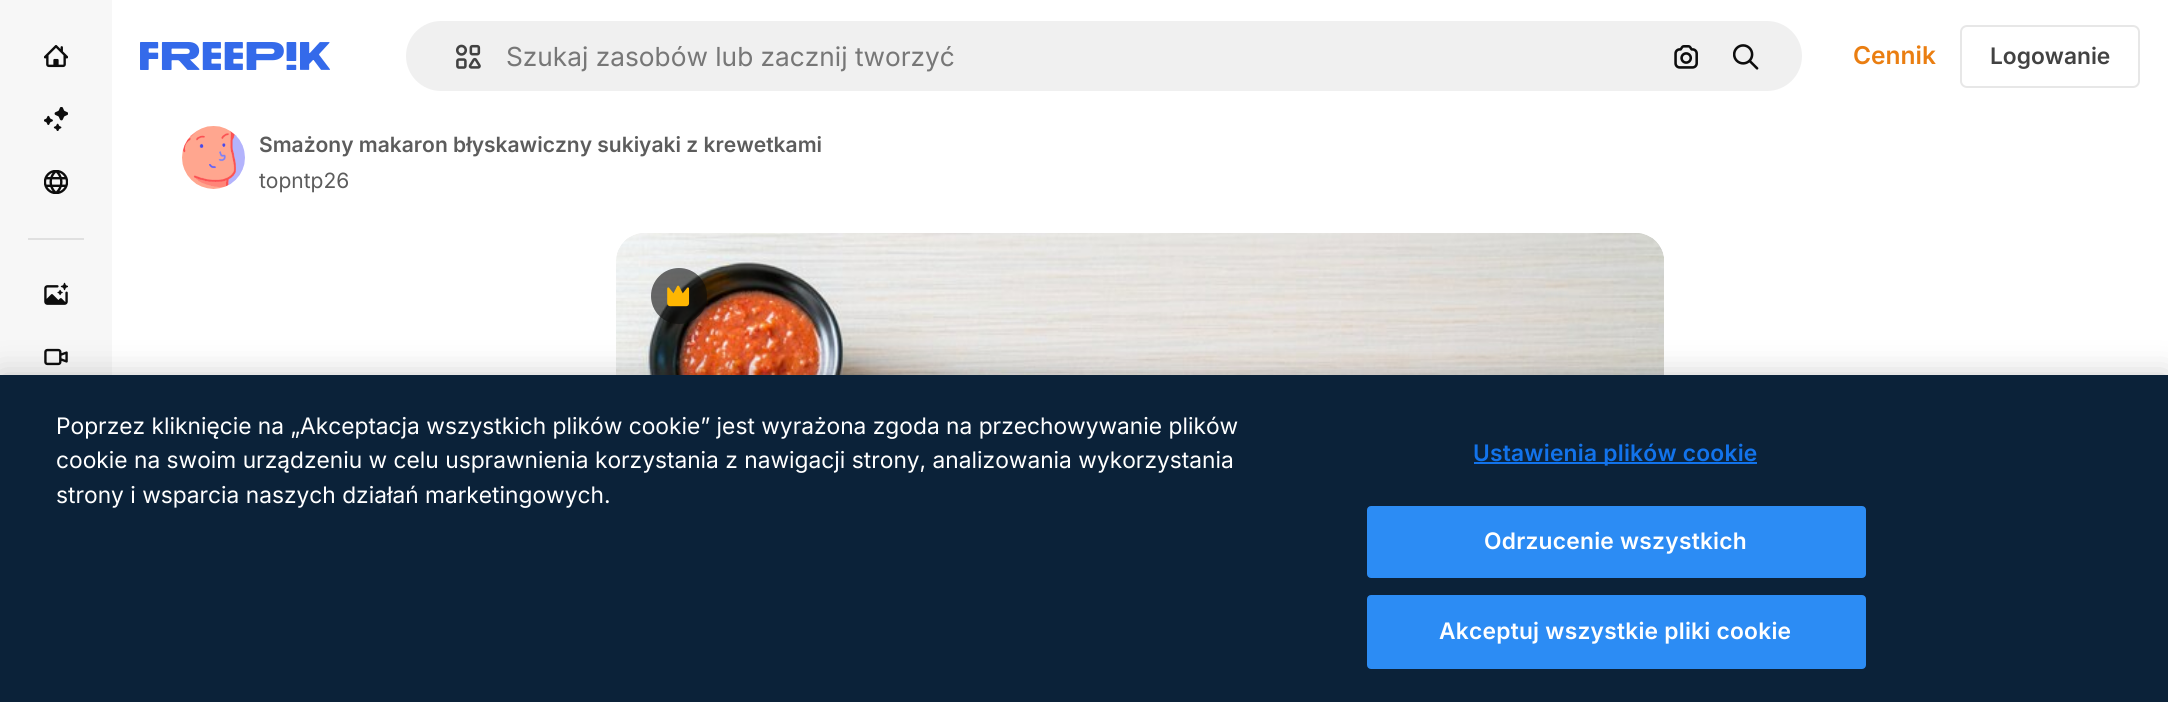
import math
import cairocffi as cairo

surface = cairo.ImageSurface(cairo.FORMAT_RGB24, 2168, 702)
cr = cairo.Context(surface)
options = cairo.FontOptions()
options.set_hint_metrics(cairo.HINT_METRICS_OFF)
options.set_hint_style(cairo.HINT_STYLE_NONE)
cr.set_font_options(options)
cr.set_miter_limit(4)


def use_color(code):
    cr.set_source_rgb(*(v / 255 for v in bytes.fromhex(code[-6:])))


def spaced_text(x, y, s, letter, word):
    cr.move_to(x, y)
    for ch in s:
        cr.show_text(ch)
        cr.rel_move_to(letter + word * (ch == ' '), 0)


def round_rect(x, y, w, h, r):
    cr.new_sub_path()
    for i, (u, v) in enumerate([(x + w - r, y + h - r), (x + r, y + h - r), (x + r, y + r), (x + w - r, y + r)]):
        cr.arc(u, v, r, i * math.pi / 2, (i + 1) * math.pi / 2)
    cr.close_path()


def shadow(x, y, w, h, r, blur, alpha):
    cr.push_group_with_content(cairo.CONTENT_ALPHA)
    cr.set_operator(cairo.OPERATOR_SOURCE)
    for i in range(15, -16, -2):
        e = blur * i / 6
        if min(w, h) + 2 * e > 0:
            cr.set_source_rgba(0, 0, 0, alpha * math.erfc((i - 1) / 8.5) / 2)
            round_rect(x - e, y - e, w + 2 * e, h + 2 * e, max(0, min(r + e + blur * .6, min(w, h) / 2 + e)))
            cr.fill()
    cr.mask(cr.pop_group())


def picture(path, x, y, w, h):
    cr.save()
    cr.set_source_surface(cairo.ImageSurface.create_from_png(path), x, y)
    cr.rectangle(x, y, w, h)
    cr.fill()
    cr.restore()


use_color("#ffffff")
cr.paint()
use_color("#f7f7f7")
cr.rectangle(0, 0, 112, 375)
cr.fill()
picture("img1.png", 44, 45, 24, 23)
picture("img2.png", 44, 107, 24, 24)
picture("img3.png", 44, 170, 24, 24)
use_color("#e0e0e0")
cr.rectangle(28, 238, 56, 2)
cr.fill()
picture("img4.png", 44, 282, 24, 23)
picture("img5.png", 44, 348, 24, 18)
picture("img6.png", 140, 42, 190, 28)
use_color("#f0f0f0")
round_rect(405, 20, 1398, 72, 36)
cr.fill_preserve()
use_color("#ffffff")
cr.stroke()
picture("img7.png", 456, 44, 25, 25)
cr.select_font_face("Inter")
cr.set_font_size(26.25)
use_color("#777777")
cr.move_to(506, 66)
cr.show_text("Szukaj zasobów lub zacznij tworzyć")
picture("img8.png", 1674, 45, 24, 24)
picture("img9.png", 1733, 44, 26, 26)
cr.select_font_face("Inter SemiBold")
cr.set_font_size(24.5)
use_color("#ea7e11")
cr.move_to(1853, 64)
cr.show_text("Cennik")
round_rect(1961, 26, 178, 61, 6)
use_color("#e7e7e7")
cr.stroke()
cr.set_font_size(22.75)
use_color("#424242")
cr.move_to(1990, 64)
cr.show_text("Logowanie")
picture("img10.png", 182, 126, 63, 63)
cr.set_font_size(21)
use_color("#5c5c5c")
cr.move_to(259, 152)
cr.show_text("Smażony makaron błyskawiczny sukiyaki z krewetkami")
cr.select_font_face("Inter")
cr.move_to(259, 188)
cr.show_text("topntp26")
picture("img11.png", 616, 233, 1048, 142)
cr.set_source_rgba(0.051, 0.051, 0.051, 0.6)
cr.arc(679, 296, 28, 0, 2 * math.pi)
cr.fill()
picture("img12.png", 667, 285, 23, 22)
use_color("#000000")
shadow(0, 375, 2168, 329, 0, 16, 0.2)
use_color("#0b2239")
cr.rectangle(0, 375, 2168, 327)
cr.fill()
cr.set_font_size(22.75)
use_color("#ffffff")
cr.move_to(56, 434)
cr.show_text("Poprzez kliknięcie na „Akceptacja wszystkich plików cookie” jest wyrażona zgoda na przechowywanie plików")
cr.move_to(56, 468)
cr.show_text("cookie na swoim urządzeniu w celu usprawnienia korzystania z nawigacji strony, analizowania wykorzystania")
cr.move_to(56, 503)
cr.show_text("strony i wsparcia naszych działań marketingowych.")
use_color("#1273eb")
cr.rectangle(1474, 462, 283, 2)
cr.fill()
cr.select_font_face("Inter SemiBold")
spaced_text(1473, 461, "Ustawienia plików cookie", 0.25, 0)
use_color("#2c8cf4")
round_rect(1368, 507, 497, 70, 3)
cr.fill_preserve()
cr.stroke()
use_color("#ffffff")
spaced_text(1484, 549, "Odrzucenie wszystkich", 0.25, 0)
use_color("#2c8cf4")
round_rect(1368, 596, 497, 72, 3)
cr.fill_preserve()
cr.stroke()
use_color("#ffffff")
spaced_text(1439, 639, "Akceptuj wszystkie pliki cookie", 0.25, 0)
surface.write_to_png("result.png")
